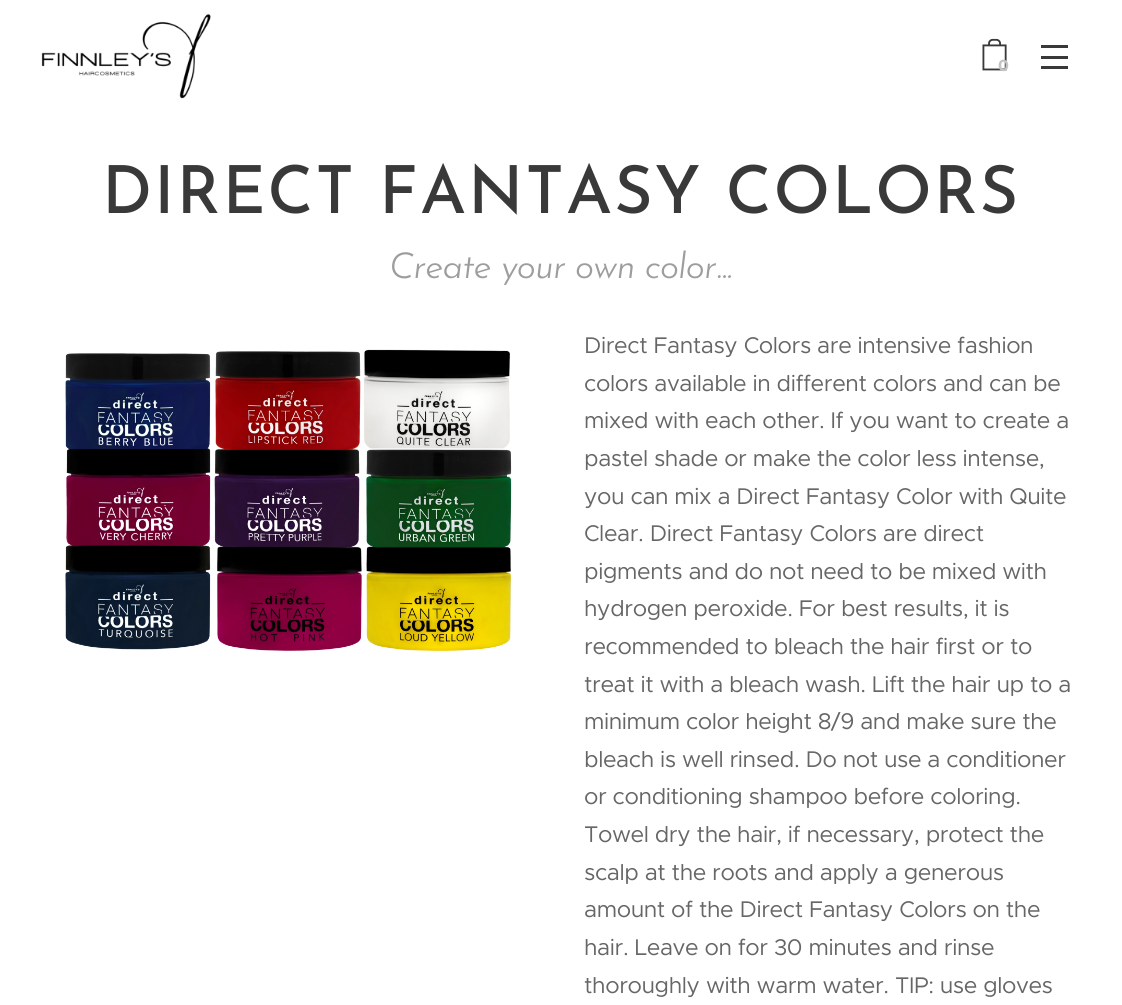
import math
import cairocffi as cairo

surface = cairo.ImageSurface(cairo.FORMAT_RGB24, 1122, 1005)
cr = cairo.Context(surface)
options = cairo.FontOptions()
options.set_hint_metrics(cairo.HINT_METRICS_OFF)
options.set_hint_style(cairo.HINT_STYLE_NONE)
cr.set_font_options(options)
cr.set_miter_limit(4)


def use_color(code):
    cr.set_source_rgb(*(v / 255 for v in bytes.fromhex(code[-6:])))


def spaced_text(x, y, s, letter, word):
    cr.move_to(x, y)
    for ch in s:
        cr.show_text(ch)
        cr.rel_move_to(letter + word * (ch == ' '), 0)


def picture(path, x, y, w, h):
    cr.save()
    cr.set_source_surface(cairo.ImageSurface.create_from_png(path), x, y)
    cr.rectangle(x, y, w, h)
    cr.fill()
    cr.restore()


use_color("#ffffff")
cr.paint()
picture("img1.png", 41, 14, 170, 85)
picture("img2.png", 982, 38, 25, 33)
cr.select_font_face("Montserrat", cairo.FONT_SLANT_NORMAL, cairo.FONT_WEIGHT_BOLD)
cr.set_font_size(16)
use_color("#c4c4c4")
cr.move_to(998, 71)
cr.show_text("0")
use_color("#393939")
cr.rectangle(1041, 56, 27, 3)
cr.fill()
cr.rectangle(1041, 45, 27, 3)
cr.fill()
cr.rectangle(1041, 66, 27, 3)
cr.fill()
cr.select_font_face("Josefin Sans Medium")
cr.set_font_size(66)
spaced_text(102, 213, "DIRECT FANTASY COLORS", 2, 0)
cr.select_font_face("Josefin Sans Light", cairo.FONT_SLANT_ITALIC)
cr.set_font_size(36)
use_color("#9d9d9d")
spaced_text(389, 278, "Create your own color...", -0.75, 0)
picture("img3.png", 65, 349, 447, 302)
cr.select_font_face("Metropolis")
cr.set_font_size(22.8)
use_color("#666666")
spaced_text(584, 353, "Direct Fantasy Colors are intensive fashion", -0.4, 0)
spaced_text(584, 391, "colors available in different colors and can be", -0.4, 0)
spaced_text(584, 428, "mixed with each other. If you want to create a", -0.4, 0)
spaced_text(584, 466, "pastel shade or make the color less intense,", -0.4, 0)
spaced_text(584, 504, "you can mix a Direct Fantasy Color with Quite", -0.4, 0)
spaced_text(584, 541, "Clear. Direct Fantasy Colors are direct", -0.4, 0)
spaced_text(584, 579, "pigments and do not need to be mixed with", -0.4, 0)
spaced_text(584, 616, "hydrogen peroxide. For best results, it is", -0.4, 0)
spaced_text(584, 654, "recommended to bleach the hair first or to", -0.4, 0)
spaced_text(584, 692, "treat it with a bleach wash. Lift the hair up to a", -0.4, 0)
spaced_text(584, 729, "minimum color height 8/9 and make sure the", -0.4, 0)
spaced_text(584, 767, "bleach is well rinsed. Do not use a conditioner", -0.4, 0)
spaced_text(584, 804, "or conditioning shampoo before coloring.", -0.4, 0)
spaced_text(584, 842, "Towel dry the hair, if necessary, protect the", -0.4, 0)
spaced_text(584, 880, "scalp at the roots and apply a generous", -0.4, 0)
spaced_text(584, 917, "amount of the Direct Fantasy Colors on the", -0.4, 0)
spaced_text(584, 955, "hair. Leave on for 30 minutes and rinse", -0.4, 0)
spaced_text(584, 993, "thoroughly with warm water. TIP: use gloves", -0.4, 0)
surface.write_to_png("result.png")
